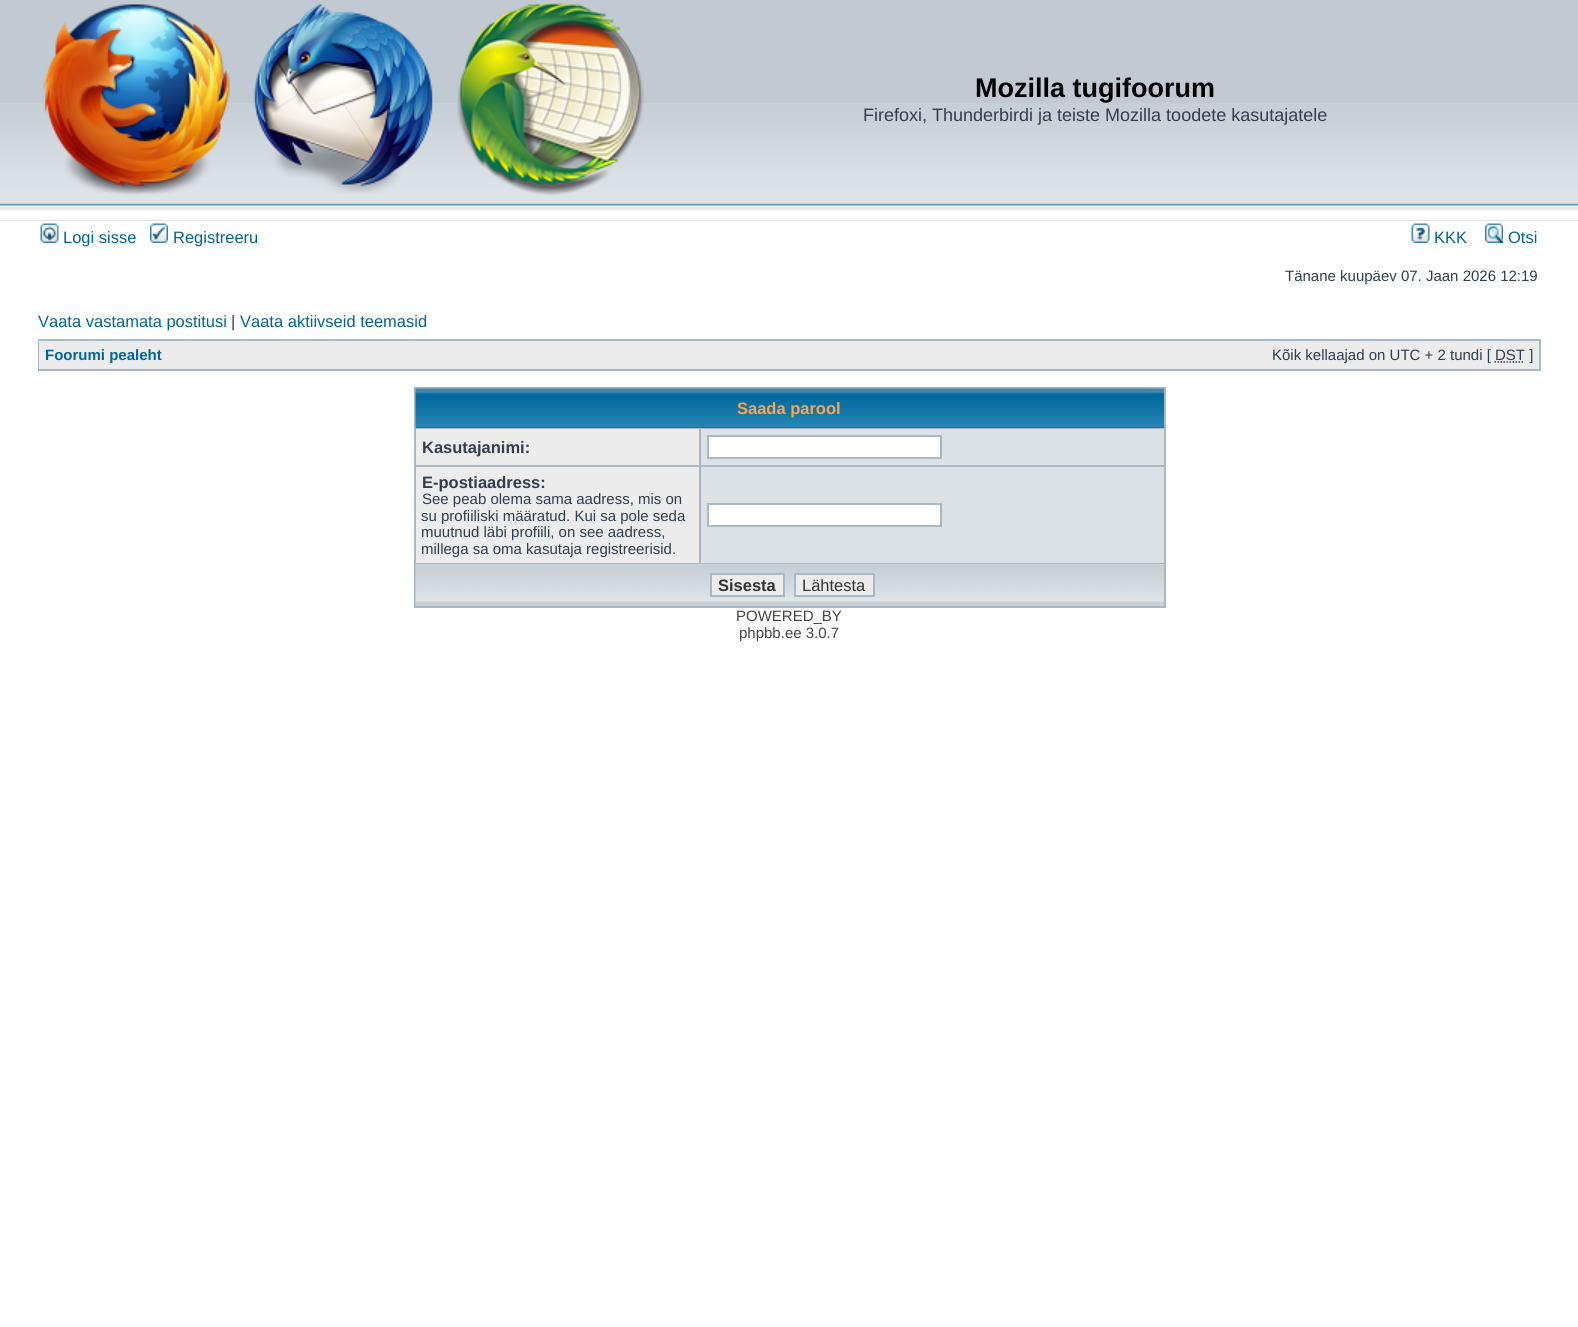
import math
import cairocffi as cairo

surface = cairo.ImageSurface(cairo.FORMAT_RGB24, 1578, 1327)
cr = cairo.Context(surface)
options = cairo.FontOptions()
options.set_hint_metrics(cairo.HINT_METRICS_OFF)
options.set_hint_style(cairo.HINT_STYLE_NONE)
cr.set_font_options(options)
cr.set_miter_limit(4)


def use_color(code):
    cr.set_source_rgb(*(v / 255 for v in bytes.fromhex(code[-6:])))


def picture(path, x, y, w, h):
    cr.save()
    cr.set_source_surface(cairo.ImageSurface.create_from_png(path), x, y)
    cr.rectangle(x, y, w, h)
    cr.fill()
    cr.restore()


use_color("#ffffff")
cr.paint()
use_color("#c1cad2")
cr.rectangle(0, 0, 1578, 221)
cr.fill()
picture("img1.png", 0, 103, 1578, 118)
picture("img2.png", 43, 3, 601, 192)
cr.select_font_face("Liberation Sans", cairo.FONT_SLANT_NORMAL, cairo.FONT_WEIGHT_BOLD)
cr.set_font_size(27)
use_color("#000000")
cr.move_to(975, 97)
cr.show_text("Mozilla tugifoorum")
cr.select_font_face("Liberation Sans")
cr.set_font_size(18)
use_color("#323d4f")
cr.move_to(863, 121)
cr.show_text("Firefoxi, Thunderbirdi ja teiste Mozilla toodete kasutajatele")
picture("img3.png", 40, 223, 19, 20)
cr.set_font_size(16.5)
use_color("#006597")
cr.move_to(63, 243)
cr.show_text("Logi sisse")
picture("img4.png", 150, 223, 18, 20)
cr.move_to(173, 243)
cr.show_text("Registreeru")
picture("img5.png", 1411, 223, 19, 20)
cr.move_to(1434, 243)
cr.show_text("KKK")
picture("img6.png", 1485, 223, 18, 20)
cr.move_to(1508, 243)
cr.show_text("Otsi")
cr.set_font_size(15)
use_color("#323d4f")
cr.move_to(1285, 281)
cr.show_text("Tänane kuupäev 07. Jaan 2026 12:19")
cr.set_font_size(16.5)
use_color("#006597")
cr.move_to(38, 327)
cr.show_text("Vaata vastamata postitusi")
use_color("#323d4f")
cr.move_to(231, 327)
cr.show_text("|")
use_color("#006597")
cr.move_to(240, 327)
cr.show_text("Vaata aktiivseid teemasid")
use_color("#a9b8c2")
cr.rectangle(38, 339, 1503, 32)
cr.fill()
use_color("#ececec")
cr.rectangle(39, 341, 1500, 28)
cr.fill()
cr.select_font_face("Liberation Sans", cairo.FONT_SLANT_NORMAL, cairo.FONT_WEIGHT_BOLD)
cr.set_font_size(15)
use_color("#006597")
cr.move_to(45, 360)
cr.show_text("Foorumi pealeht")
cr.select_font_face("Liberation Sans")
use_color("#323d4f")
cr.move_to(1272, 360)
cr.show_text("Kõik kellaajad on UTC + 2 tundi [ DST ]")
cr.new_path()
cr.move_to(1494.5, 362)
cr.line_to(1524.5, 362)
cr.set_line_width(1.5)
cr.set_dash([1.5, 1.5])
cr.stroke()
use_color("#a9b8c2")
cr.rectangle(414, 387, 752, 221)
cr.fill()
use_color("#006699")
cr.rectangle(416, 427, 748, 1)
cr.fill()
picture("img7.png", 415, 388, 749, 40)
cr.select_font_face("Liberation Sans", cairo.FONT_SLANT_NORMAL, cairo.FONT_WEIGHT_BOLD)
cr.set_font_size(16.5)
use_color("#ffa34f")
cr.move_to(737, 414)
cr.show_text("Saada parool")
use_color("#ececec")
cr.rectangle(416, 429, 283, 36)
cr.fill()
use_color("#323d4f")
cr.move_to(422, 453)
cr.show_text("Kasutajanimi:")
use_color("#dce1e5")
cr.rectangle(701, 429, 463, 36)
cr.fill()
use_color("#ffffff")
cr.rectangle(708, 436, 233, 22)
cr.fill_preserve()
use_color("#a9b8c2")
cr.set_line_width(2)
cr.set_dash([])
cr.stroke()
use_color("#ececec")
cr.rectangle(416, 467, 283, 96)
cr.fill()
use_color("#323d4f")
cr.move_to(422, 488)
cr.show_text("E-postiaadress:")
cr.select_font_face("Liberation Sans")
cr.set_font_size(15)
cr.move_to(422, 504)
cr.show_text("See peab olema sama aadress, mis on")
cr.move_to(421, 521)
cr.show_text("su profiiliski määratud. Kui sa pole seda")
cr.move_to(421, 537)
cr.show_text("muutnud läbi profiili, on see aadress,")
cr.move_to(421, 554)
cr.show_text("millega sa oma kasutaja registreerisid.")
use_color("#dce1e5")
cr.rectangle(701, 467, 463, 96)
cr.fill()
use_color("#ffffff")
cr.rectangle(708, 504, 233, 22)
cr.fill_preserve()
use_color("#a9b8c2")
cr.stroke()
picture("img8.png", 415, 564, 749, 42)
use_color("#ececec")
cr.rectangle(711, 574, 73, 22)
cr.fill_preserve()
use_color("#a9b8c2")
cr.stroke()
cr.select_font_face("Liberation Sans", cairo.FONT_SLANT_NORMAL, cairo.FONT_WEIGHT_BOLD)
cr.set_font_size(16.5)
use_color("#333333")
cr.move_to(718, 591)
cr.show_text("Sisesta")
use_color("#ececec")
cr.rectangle(795, 574, 79, 22)
cr.fill_preserve()
use_color("#a9b8c2")
cr.stroke()
cr.select_font_face("Liberation Sans")
use_color("#333333")
cr.move_to(802, 591)
cr.show_text("Lähtesta")
cr.set_font_size(15)
use_color("#444444")
cr.move_to(736, 621)
cr.show_text("POWERED_BY")
cr.move_to(739, 638)
cr.show_text("phpbb.ee 3.0.7")
surface.write_to_png("result.png")
